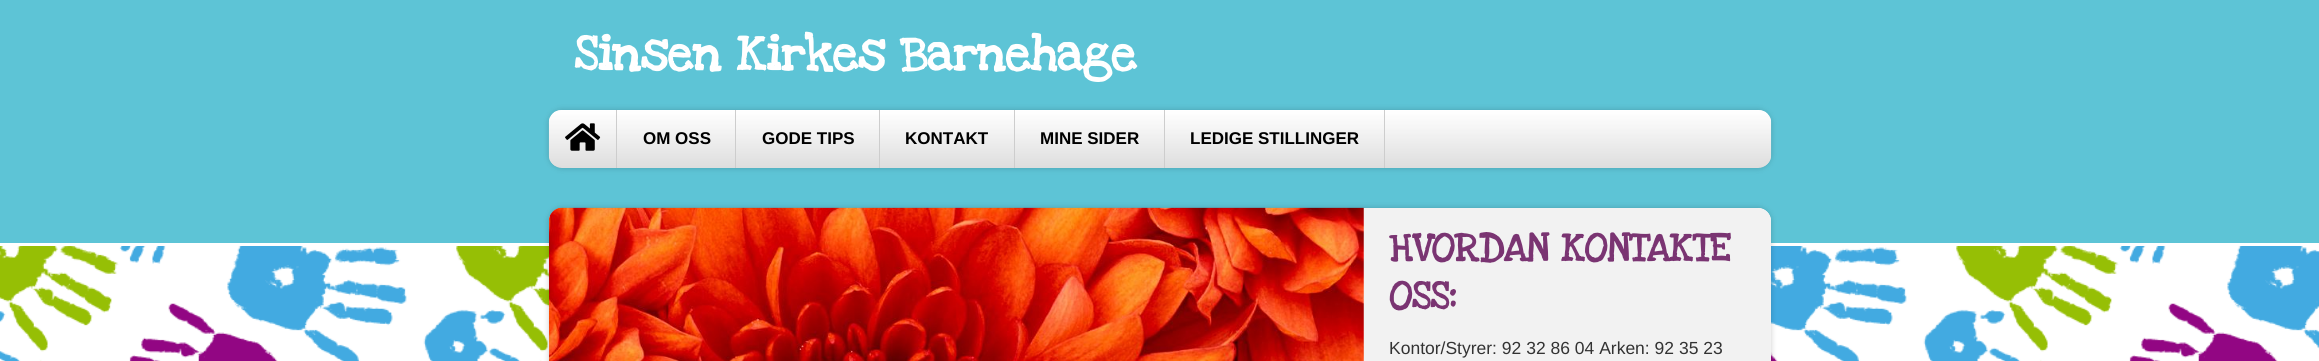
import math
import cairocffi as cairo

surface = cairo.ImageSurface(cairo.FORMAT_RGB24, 2319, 361)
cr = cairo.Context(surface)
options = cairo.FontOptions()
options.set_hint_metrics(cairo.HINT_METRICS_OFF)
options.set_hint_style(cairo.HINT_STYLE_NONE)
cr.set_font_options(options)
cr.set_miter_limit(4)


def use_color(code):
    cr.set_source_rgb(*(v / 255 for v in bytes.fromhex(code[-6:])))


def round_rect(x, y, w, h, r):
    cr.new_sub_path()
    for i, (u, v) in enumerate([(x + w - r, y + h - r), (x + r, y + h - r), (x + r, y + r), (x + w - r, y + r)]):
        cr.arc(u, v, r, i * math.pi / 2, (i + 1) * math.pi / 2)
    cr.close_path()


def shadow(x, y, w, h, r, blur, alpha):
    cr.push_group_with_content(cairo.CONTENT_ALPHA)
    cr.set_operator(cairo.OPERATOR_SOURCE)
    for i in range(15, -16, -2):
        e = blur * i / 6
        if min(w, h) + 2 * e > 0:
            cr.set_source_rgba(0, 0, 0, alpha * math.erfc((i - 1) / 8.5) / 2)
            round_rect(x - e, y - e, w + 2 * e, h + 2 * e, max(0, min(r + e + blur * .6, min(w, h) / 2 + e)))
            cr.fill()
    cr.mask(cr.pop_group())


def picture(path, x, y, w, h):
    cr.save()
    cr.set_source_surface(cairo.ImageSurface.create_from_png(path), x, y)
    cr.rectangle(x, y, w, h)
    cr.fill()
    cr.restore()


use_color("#ffffff")
cr.paint()
picture("img1.png", 0, 246, 2319, 115)
use_color("#5dc4d6")
cr.rectangle(0, 0, 2319, 243)
cr.fill()
cr.select_font_face("Love Ya Like A Sister", cairo.FONT_SLANT_NORMAL, cairo.FONT_WEIGHT_BOLD)
cr.set_font_size(50)
use_color("#ffffff")
cr.move_to(574, 70)
cr.show_text("Sinsen Kirkes Barnehage")
use_color("#000000")
shadow(549, 110, 1222, 58, 13, 3, 0.2)
use_color("#dedede")
round_rect(549, 110, 1222, 58, 13)
cr.fill()
picture("img2.png", 548, 110, 1224, 57)
use_color("#cdcdcd")
cr.rectangle(616, 110, 1, 58)
cr.fill()
picture("img3.png", 565, 123, 36, 28)
cr.rectangle(735, 110, 1, 58)
cr.fill()
cr.select_font_face("Liberation Sans", cairo.FONT_SLANT_NORMAL, cairo.FONT_WEIGHT_BOLD)
cr.set_font_size(17)
use_color("#000000")
cr.move_to(643, 144)
cr.show_text("OM OSS")
use_color("#cdcdcd")
cr.rectangle(879, 110, 1, 58)
cr.fill()
use_color("#000000")
cr.move_to(762, 144)
cr.show_text("GODE TIPS")
use_color("#cdcdcd")
cr.rectangle(1014, 110, 1, 58)
cr.fill()
use_color("#000000")
cr.move_to(905, 144)
cr.show_text("KONTAKT")
use_color("#cdcdcd")
cr.rectangle(1164, 110, 1, 58)
cr.fill()
use_color("#000000")
cr.move_to(1040, 144)
cr.show_text("MINE SIDER")
use_color("#cdcdcd")
cr.rectangle(1384, 110, 1, 58)
cr.fill()
use_color("#000000")
cr.move_to(1190, 144)
cr.show_text("LEDIGE STILLINGER")
use_color("#000000")
shadow(549, 208, 1222, 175, 13, 3, 0.2)
use_color("#ffffff")
round_rect(549, 208, 1222, 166, 13)
cr.fill()
cr.save()
round_rect(549, 208, 1222, 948, 13)
cr.clip()
use_color("#f2f2f2")
cr.new_path()
cr.move_to(563, 208)
cr.line_to(1758, 208)
cr.curve_to(1765, 208, 1771, 214, 1771, 221)
cr.line_to(1771, 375)
cr.line_to(549, 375)
cr.line_to(549, 222)
cr.curve_to(549, 214.5, 555.5, 208, 563, 208)
cr.close_path()
cr.fill()
cr.restore()
picture("img4.png", 549, 207, 815, 154)
cr.select_font_face("Love Ya Like A Sister", cairo.FONT_SLANT_NORMAL, cairo.FONT_WEIGHT_BOLD)
cr.set_font_size(40)
use_color("#7a3472")
cr.move_to(1389, 261)
cr.show_text("HVORDAN KONTAKTE")
cr.move_to(1389, 309)
cr.show_text("OSS:")
cr.select_font_face("Liberation Sans")
cr.set_font_size(17.5)
use_color("#333333")
cr.move_to(1389, 354)
cr.show_text("Kontor/Styrer: 92 32 86 04 Arken: 92 35 23")
surface.write_to_png("result.png")
